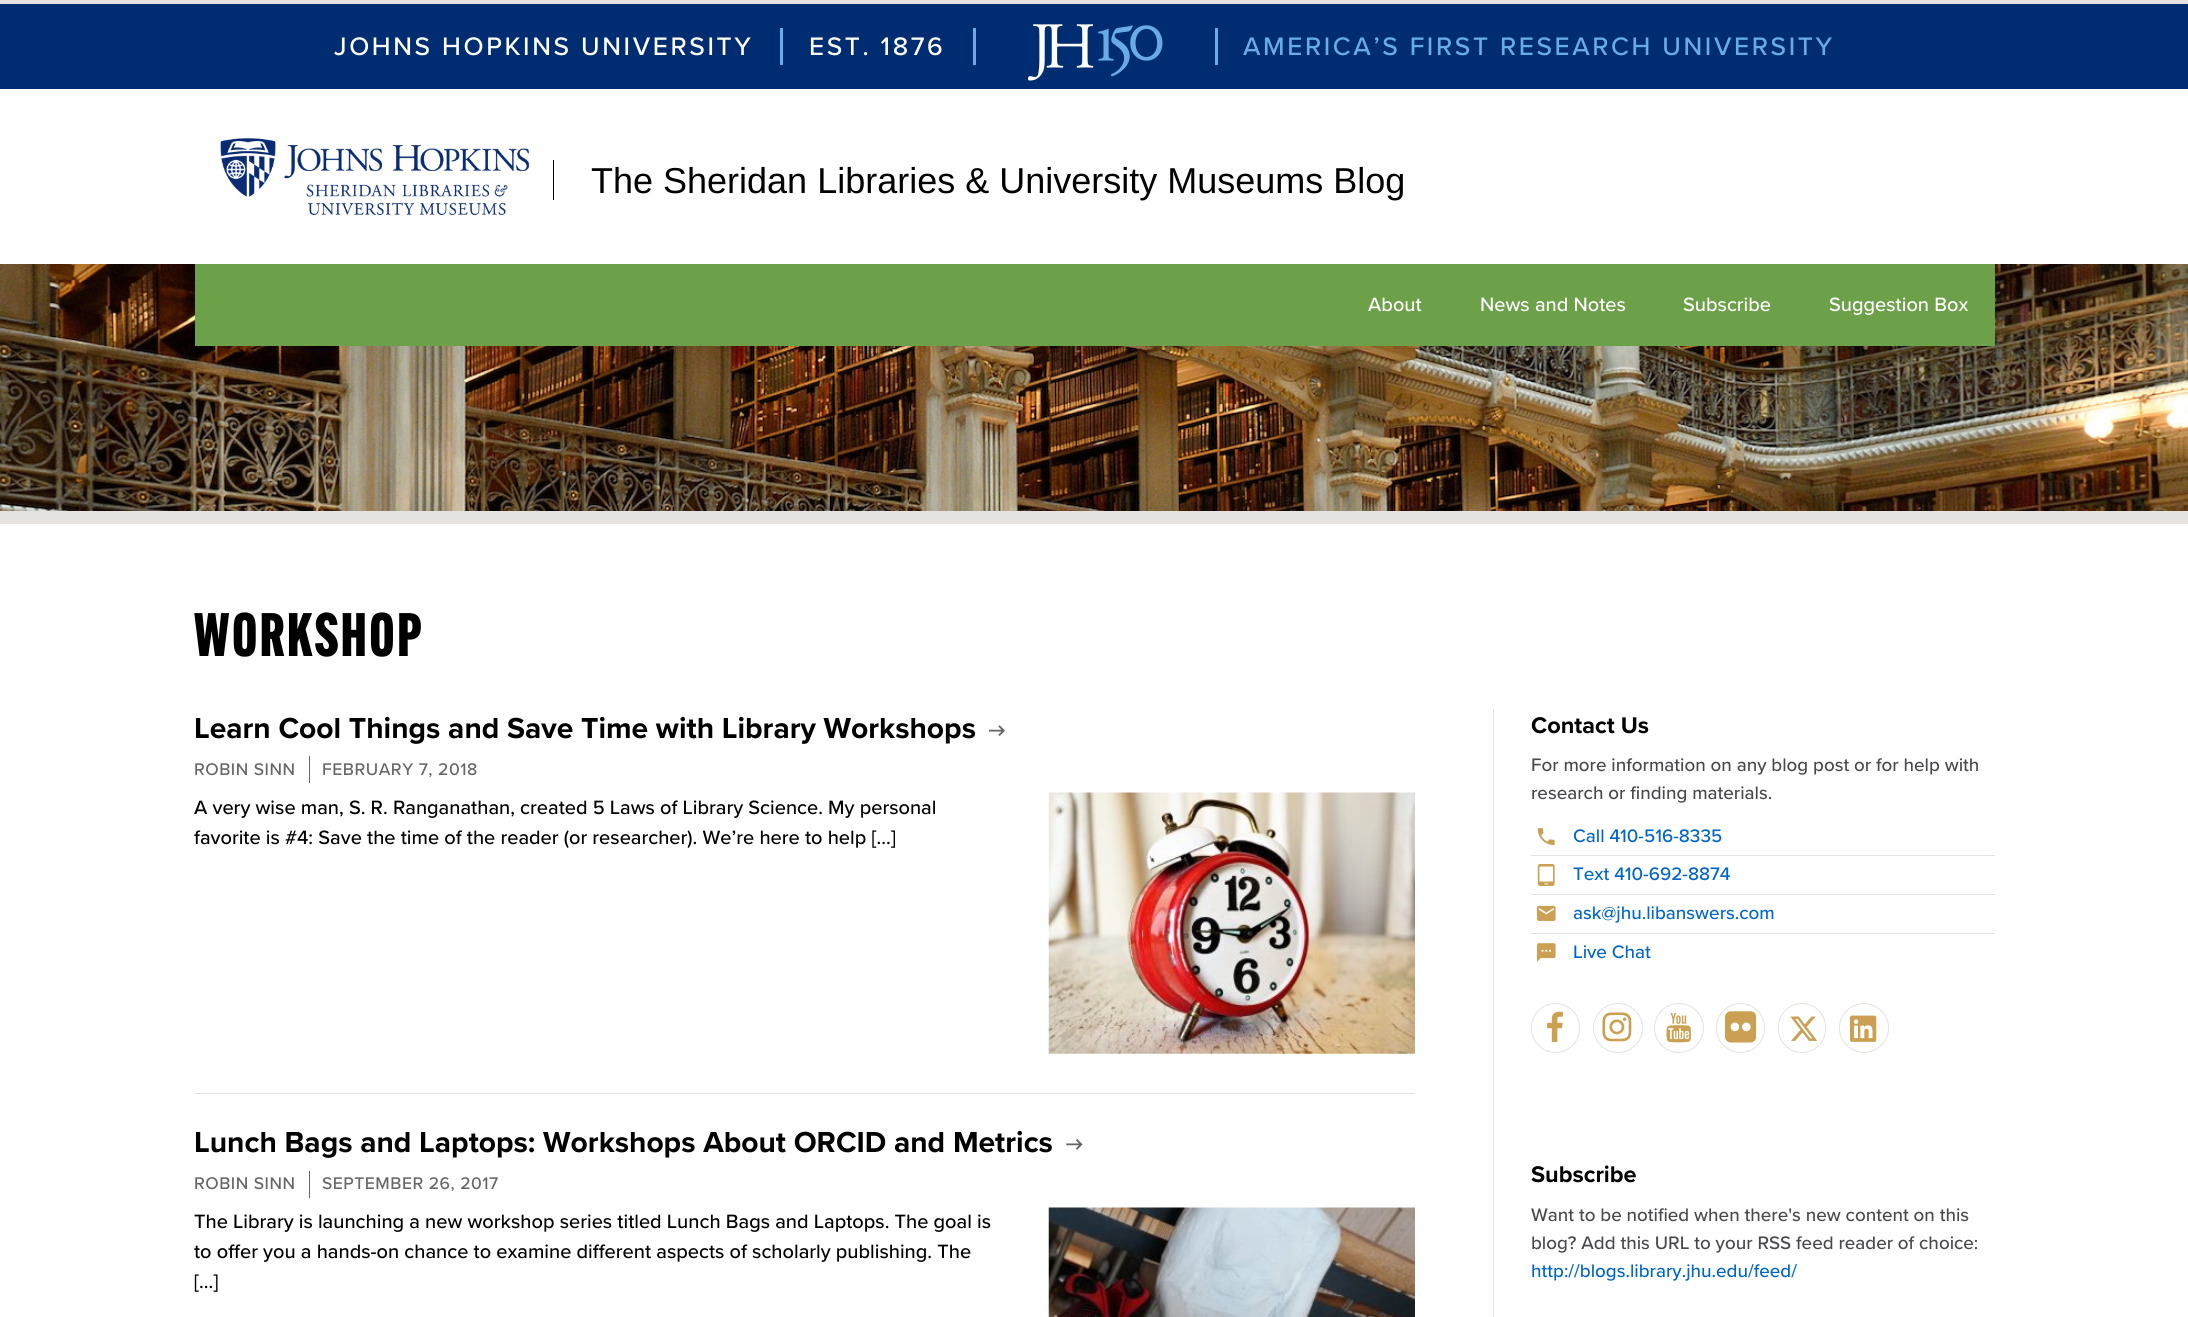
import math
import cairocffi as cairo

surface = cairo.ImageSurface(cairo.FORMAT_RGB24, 2188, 1317)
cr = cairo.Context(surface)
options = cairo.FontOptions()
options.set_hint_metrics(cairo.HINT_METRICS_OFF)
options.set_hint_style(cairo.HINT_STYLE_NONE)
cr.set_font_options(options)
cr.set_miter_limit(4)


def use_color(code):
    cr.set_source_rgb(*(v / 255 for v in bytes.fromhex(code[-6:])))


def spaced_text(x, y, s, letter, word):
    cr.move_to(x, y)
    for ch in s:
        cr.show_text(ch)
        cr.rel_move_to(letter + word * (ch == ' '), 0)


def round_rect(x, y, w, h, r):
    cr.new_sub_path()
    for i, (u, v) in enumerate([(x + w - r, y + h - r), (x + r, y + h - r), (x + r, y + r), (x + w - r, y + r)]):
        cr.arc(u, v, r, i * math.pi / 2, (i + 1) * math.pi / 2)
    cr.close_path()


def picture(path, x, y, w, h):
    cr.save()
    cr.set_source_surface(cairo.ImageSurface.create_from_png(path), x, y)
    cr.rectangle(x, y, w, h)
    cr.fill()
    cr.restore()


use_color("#ffffff")
cr.paint()
use_color("#e5e2e0")
cr.rectangle(0, 0, 2188, 4)
cr.fill()
use_color("#002d72")
cr.rectangle(0, 4, 2188, 85)
cr.fill()
cr.select_font_face("Proxima Nova Medium")
cr.set_font_size(26.25)
use_color("#ffffff")
spaced_text(334, 55, "JOHNS HOPKINS UNIVERSITY", 2.6, 0)
use_color("#68ace5")
cr.rectangle(780, 28, 3, 37)
cr.fill()
use_color("#ffffff")
spaced_text(809, 55, "EST. 1876", 2.6, 0)
use_color("#68ace5")
cr.rectangle(973, 28, 3, 37)
cr.fill()
picture("img1.png", 1028, 24, 135, 57)
cr.rectangle(1215, 28, 3, 37)
cr.fill()
spaced_text(1243, 55, "AMERICA’S FIRST RESEARCH UNIVERSITY", 2.6, 0)
picture("img2.png", 220, 138, 310, 77)
cr.select_font_face("Liberation Sans")
cr.set_font_size(36)
use_color("#000000")
cr.move_to(591, 193)
cr.show_text("The Sheridan Libraries & University Museums Blog")
cr.rectangle(553, 160, 1, 40)
cr.fill()
picture("img3.png", 0, 264, 2188, 247)
use_color("#e5e2e0")
cr.rectangle(0, 511, 2188, 13)
cr.fill()
use_color("#6da149")
cr.rectangle(195, 264, 1800, 82)
cr.fill()
cr.select_font_face("Proxima Nova Medium")
cr.set_font_size(20)
use_color("#ffffff")
cr.move_to(1368, 311)
cr.show_text("About")
cr.move_to(1480, 311)
cr.show_text("News and Notes")
cr.move_to(1683, 311)
cr.show_text("Subscribe")
cr.move_to(1829, 311)
cr.show_text("Suggestion Box")
cr.select_font_face("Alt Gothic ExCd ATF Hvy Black")
cr.set_font_size(60)
use_color("#000000")
spaced_text(194, 656, "WORKSHOP", 2.5, 0)
cr.select_font_face("Proxima Nova", cairo.FONT_SLANT_NORMAL, cairo.FONT_WEIGHT_BOLD)
cr.set_font_size(30)
cr.move_to(194, 738)
cr.show_text("Learn Cool Things and Save Time with Library Workshops")
picture("img4.png", 989, 725, 16, 11)
cr.select_font_face("Proxima Nova Medium")
cr.set_font_size(17.5)
use_color("#666666")
spaced_text(194, 775, "ROBIN SINN", 0.5, 0)
cr.rectangle(309, 756, 1, 27)
cr.fill()
spaced_text(322, 775, "FEBRUARY 7, 2018", 0.5, 0)
cr.set_font_size(20)
use_color("#000000")
cr.move_to(194, 814)
cr.show_text("A very wise man, S. R. Ranganathan, created 5 Laws of Library Science. My personal")
cr.move_to(194, 844)
cr.show_text("favorite is #4: Save the time of the reader (or researcher). We’re here to help […]")
picture("img5.png", 1048, 792, 367, 262)
use_color("#e5e2e0")
cr.rectangle(195, 1093, 1220, 1)
cr.fill()
cr.select_font_face("Proxima Nova", cairo.FONT_SLANT_NORMAL, cairo.FONT_WEIGHT_BOLD)
cr.set_font_size(30)
use_color("#000000")
cr.move_to(194, 1152)
cr.show_text("Lunch Bags and Laptops: Workshops About ORCID and Metrics")
picture("img6.png", 1066, 1139, 17, 11)
cr.select_font_face("Proxima Nova Medium")
cr.set_font_size(17.5)
use_color("#666666")
spaced_text(194, 1189, "ROBIN SINN", 0.5, 0)
cr.rectangle(309, 1171, 1, 27)
cr.fill()
spaced_text(322, 1189, "SEPTEMBER 26, 2017", 0.5, 0)
cr.set_font_size(20)
use_color("#000000")
cr.move_to(194, 1228)
cr.show_text("The Library is launching a new workshop series titled Lunch Bags and Laptops. The goal is")
cr.move_to(194, 1258)
cr.show_text("to offer you a hands-on chance to examine different aspects of scholarly publishing. The")
cr.move_to(194, 1288)
cr.show_text("[…]")
picture("img7.png", 1048, 1207, 367, 110)
use_color("#e5e2e0")
cr.rectangle(1493, 709, 1, 608)
cr.fill()
cr.select_font_face("Proxima Nova", cairo.FONT_SLANT_NORMAL, cairo.FONT_WEIGHT_BOLD)
cr.set_font_size(23.5)
use_color("#000000")
cr.move_to(1531, 733)
cr.show_text("Contact Us")
cr.select_font_face("Proxima Nova Medium")
cr.set_font_size(18.8)
use_color("#4a484c")
cr.move_to(1531, 771)
cr.show_text("For more information on any blog post or for help with")
cr.move_to(1531, 799)
cr.show_text("research or finding materials.")
use_color("#e5e2e0")
cr.rectangle(1531, 855, 464, 1)
cr.fill()
picture("img8.png", 1537, 828, 18, 17)
use_color("#0066cc")
cr.move_to(1573, 842)
cr.show_text("Call 410-516-8335")
use_color("#e5e2e0")
cr.rectangle(1531, 894, 464, 1)
cr.fill()
picture("img9.png", 1537, 864, 18, 22)
use_color("#0066cc")
cr.move_to(1573, 880)
cr.show_text("Text 410-692-8874")
use_color("#e5e2e0")
cr.rectangle(1531, 933, 464, 1)
cr.fill()
picture("img10.png", 1536, 905, 20, 16)
use_color("#0066cc")
cr.move_to(1573, 919)
cr.show_text("ask@jhu.libanswers.com")
picture("img11.png", 1536, 943, 20, 19)
cr.move_to(1573, 958)
cr.show_text("Live Chat")
picture("img12.png", 1547, 1011, 16, 32)
round_rect(1531.5, 1003.5, 48, 49, 24)
use_color("#e5e2e0")
cr.set_line_width(1)
cr.stroke()
picture("img13.png", 1602, 1012, 30, 30)
cr.arc(1618, 1028, 24.5, 0, 2 * math.pi)
cr.stroke()
picture("img14.png", 1666, 1013, 25, 30)
cr.arc(1679, 1028, 24.5, 0, 2 * math.pi)
cr.stroke()
picture("img15.png", 1725, 1011, 31, 32)
round_rect(1716.5, 1003.5, 48, 49, 24)
cr.stroke()
round_rect(1778.5, 1003.5, 47, 49, 23.5)
cr.stroke()
picture("img16.png", 1790, 1016, 28, 25)
cr.arc(1864, 1028, 24.5, 0, 2 * math.pi)
cr.stroke()
picture("img17.png", 1850, 1015, 27, 27)
cr.select_font_face("Proxima Nova", cairo.FONT_SLANT_NORMAL, cairo.FONT_WEIGHT_BOLD)
cr.set_font_size(23.5)
use_color("#000000")
cr.move_to(1531, 1182)
cr.show_text("Subscribe")
cr.select_font_face("Proxima Nova Medium")
cr.set_font_size(18.8)
use_color("#4a484c")
cr.move_to(1531, 1221)
cr.show_text("Want to be notified when there's new content on this")
cr.move_to(1531, 1249)
cr.show_text("blog? Add this URL to your RSS feed reader of choice:")
use_color("#0066cc")
cr.move_to(1531, 1277)
cr.show_text("http://blogs.library.jhu.edu/feed/")
surface.write_to_png("result.png")
